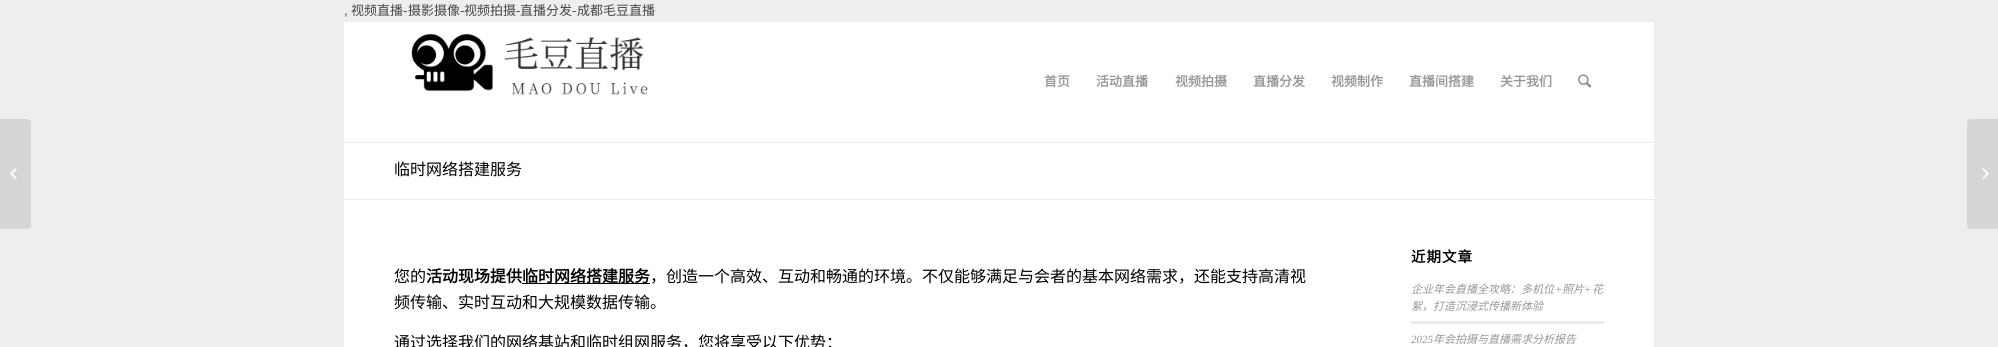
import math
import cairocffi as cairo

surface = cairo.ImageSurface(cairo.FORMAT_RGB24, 1998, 347)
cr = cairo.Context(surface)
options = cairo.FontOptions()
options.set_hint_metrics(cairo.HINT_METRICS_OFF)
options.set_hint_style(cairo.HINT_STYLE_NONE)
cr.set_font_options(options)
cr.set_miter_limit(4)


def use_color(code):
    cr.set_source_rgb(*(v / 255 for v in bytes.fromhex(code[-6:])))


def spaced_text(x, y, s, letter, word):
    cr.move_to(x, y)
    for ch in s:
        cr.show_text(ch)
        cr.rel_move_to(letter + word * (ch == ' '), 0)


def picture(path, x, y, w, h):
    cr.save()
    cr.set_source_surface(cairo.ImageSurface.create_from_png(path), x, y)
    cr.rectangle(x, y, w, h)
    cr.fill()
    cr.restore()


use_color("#eeeeee")
cr.paint()
cr.select_font_face("Liberation Sans")
cr.set_font_size(13)
use_color("#444444")
cr.move_to(344, 15)
cr.show_text(",")
cr.select_font_face("Noto Sans CJK SC")
cr.move_to(351, 15)
cr.show_text("视频直播")
cr.select_font_face("Liberation Sans")
cr.move_to(403, 15)
cr.show_text("-")
cr.select_font_face("Noto Sans CJK SC")
cr.move_to(408, 15)
cr.show_text("摄影摄像")
cr.select_font_face("Liberation Sans")
cr.move_to(460, 15)
cr.show_text("-")
cr.select_font_face("Noto Sans CJK SC")
cr.move_to(464, 15)
cr.show_text("视频拍摄")
cr.select_font_face("Liberation Sans")
cr.move_to(516, 15)
cr.show_text("-")
cr.select_font_face("Noto Sans CJK SC")
cr.move_to(520, 15)
cr.show_text("直播分发")
cr.select_font_face("Liberation Sans")
cr.move_to(572, 15)
cr.show_text("-")
cr.select_font_face("Noto Sans CJK SC")
cr.move_to(577, 15)
cr.show_text("成都毛豆直播")
use_color("#ebebeb")
cr.rectangle(344, 21, 1310, 1)
cr.fill()
cr.rectangle(344, 142, 1310, 1)
cr.fill()
use_color("#ffffff")
cr.rectangle(344, 22, 1310, 119)
cr.fill()
picture("img1.png", 411, 33, 237, 62)
cr.select_font_face("Noto Sans CJK SC", cairo.FONT_SLANT_NORMAL, cairo.FONT_WEIGHT_BOLD)
use_color("#969696")
cr.move_to(1044, 86)
cr.show_text("首页")
cr.move_to(1096, 86)
cr.show_text("活动直播")
cr.move_to(1175, 86)
cr.show_text("视频拍摄")
cr.move_to(1253, 86)
cr.show_text("直播分发")
cr.move_to(1331, 86)
cr.show_text("视频制作")
cr.move_to(1409, 86)
cr.show_text("直播间搭建")
cr.move_to(1500, 86)
cr.show_text("关于我们")
picture("img2.png", 1578, 74, 14, 14)
use_color("#d6d6d6")
cr.new_path()
cr.move_to(0, 119)
cr.line_to(27, 119)
cr.curve_to(29, 119, 31, 121, 31, 123)
cr.line_to(31, 225)
cr.curve_to(31, 227, 29, 229, 27, 229)
cr.line_to(0, 229)
cr.close_path()
cr.fill()
picture("img3.png", 10, 168, 7, 11)
use_color("#ffffff")
cr.rectangle(344, 143, 1310, 204)
cr.fill()
use_color("#fefefe")
cr.rectangle(344, 141, 1310, 1)
cr.fill()
cr.select_font_face("Noto Sans CJK SC")
cr.set_font_size(16)
use_color("#000000")
cr.move_to(394, 175)
cr.show_text("临时网络搭建服务")
use_color("#ebebeb")
cr.rectangle(344, 199, 1310, 1)
cr.fill()
use_color("#000000")
cr.move_to(394, 282)
cr.show_text("您的")
cr.select_font_face("Noto Sans CJK SC", cairo.FONT_SLANT_NORMAL, cairo.FONT_WEIGHT_BOLD)
cr.move_to(426, 282)
cr.show_text("活动现场提供")
cr.rectangle(522, 283, 128, 1)
cr.fill()
cr.move_to(522, 282)
cr.show_text("临时网络搭建服务")
cr.select_font_face("Noto Sans CJK SC")
cr.move_to(650, 282)
cr.show_text("，创造一个高效、互动和畅通的环境。不仅能够满足与会者的基本网络需求，还能支持高清视")
cr.move_to(394, 308)
cr.show_text("频传输、实时互动和大规模数据传输。")
cr.move_to(394, 348)
cr.show_text("通过选择我们的网络基站和临时组网服务，您将享受以下优势：")
cr.select_font_face("Noto Sans CJK SC", cairo.FONT_SLANT_NORMAL, cairo.FONT_WEIGHT_BOLD)
cr.set_font_size(14.5)
spaced_text(1411, 262, "近期文章", 1, 0)
cr.select_font_face("Noto Sans CJK SC", cairo.FONT_SLANT_ITALIC)
cr.set_font_size(11)
use_color("#969696")
cr.move_to(1411, 293)
cr.show_text("企业年会直播全攻略：多机位")
cr.select_font_face("Liberation Serif", cairo.FONT_SLANT_ITALIC)
cr.move_to(1555, 293)
cr.show_text("+")
cr.select_font_face("Noto Sans CJK SC", cairo.FONT_SLANT_ITALIC)
cr.move_to(1562, 293)
cr.show_text("照片")
cr.select_font_face("Liberation Serif", cairo.FONT_SLANT_ITALIC)
cr.move_to(1584, 293)
cr.show_text("+")
cr.select_font_face("Noto Sans CJK SC", cairo.FONT_SLANT_ITALIC)
cr.move_to(1592, 293)
cr.show_text("花")
cr.move_to(1411, 310)
cr.show_text("絮，打造沉浸式传播新体验")
use_color("#ebebeb")
cr.rectangle(1411, 321, 193, 3)
cr.fill()
cr.select_font_face("Liberation Serif", cairo.FONT_SLANT_ITALIC)
use_color("#969696")
cr.move_to(1411, 343)
cr.show_text("2025")
cr.select_font_face("Noto Sans CJK SC", cairo.FONT_SLANT_ITALIC)
cr.move_to(1433, 343)
cr.show_text("年会拍摄与直播需求分析报告")
use_color("#d6d6d6")
cr.new_path()
cr.move_to(1971, 119)
cr.line_to(1998, 119)
cr.line_to(1998, 229)
cr.line_to(1971, 229)
cr.curve_to(1969, 229, 1967, 227, 1967, 225)
cr.line_to(1967, 123)
cr.curve_to(1967, 121, 1969, 119, 1971, 119)
cr.close_path()
cr.fill()
picture("img4.png", 1982, 168, 7, 11)
surface.write_to_png("result.png")
